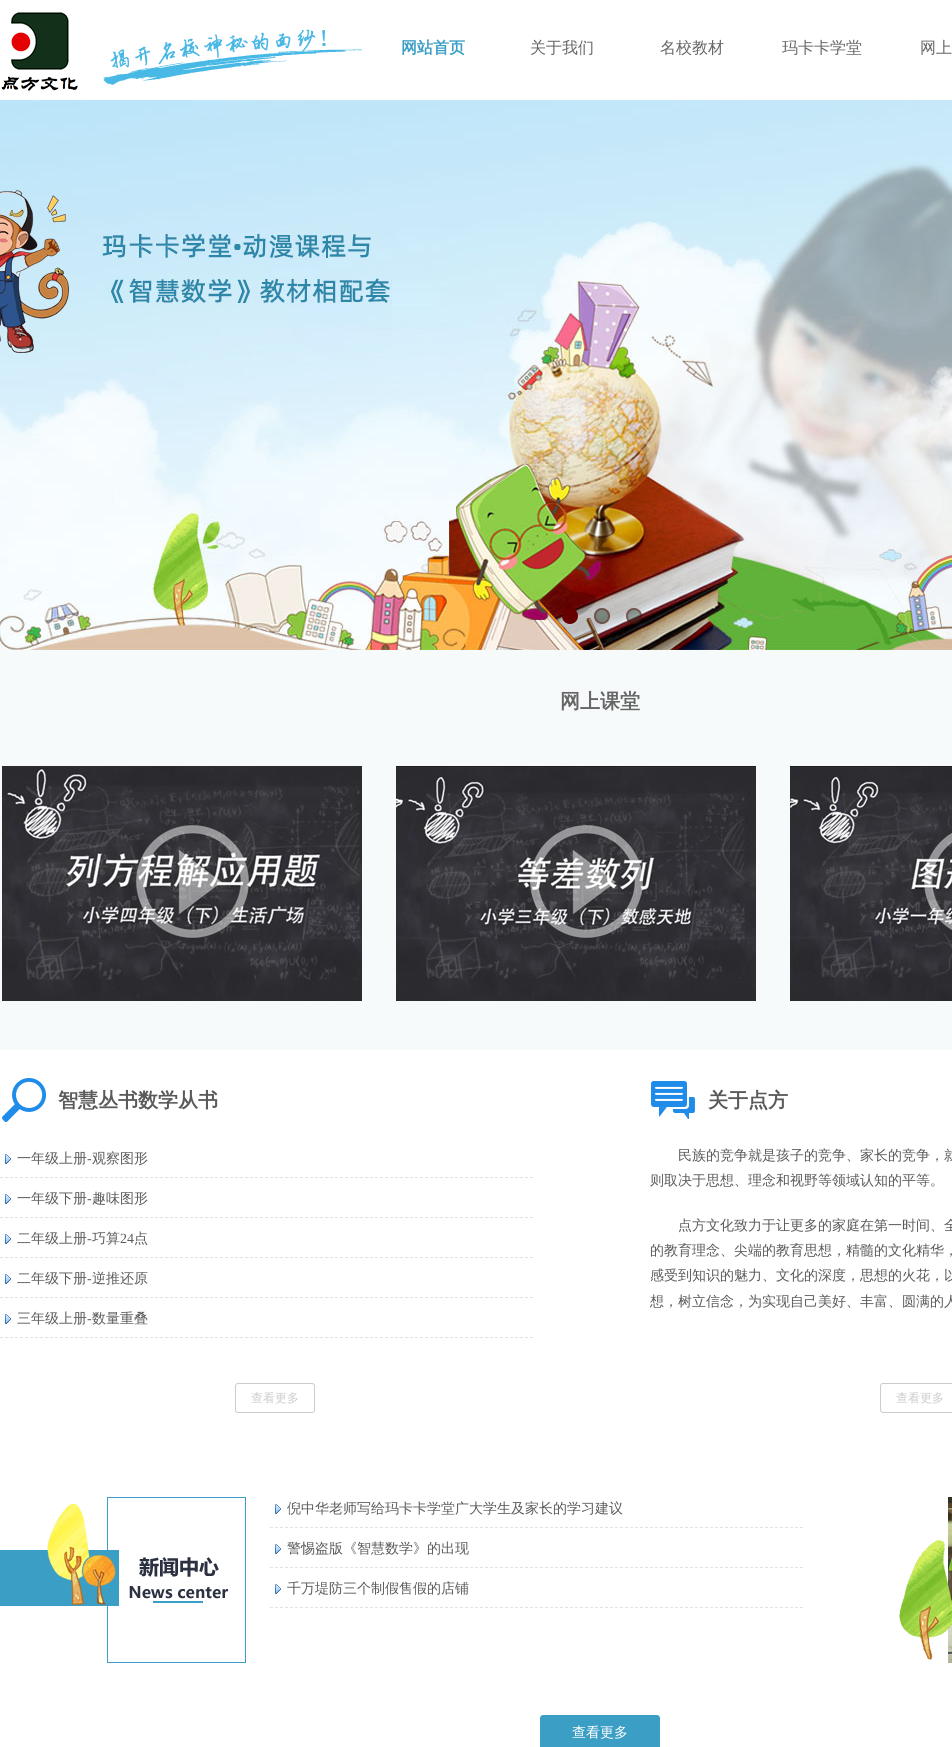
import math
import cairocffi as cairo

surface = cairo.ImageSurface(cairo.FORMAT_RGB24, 952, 1747)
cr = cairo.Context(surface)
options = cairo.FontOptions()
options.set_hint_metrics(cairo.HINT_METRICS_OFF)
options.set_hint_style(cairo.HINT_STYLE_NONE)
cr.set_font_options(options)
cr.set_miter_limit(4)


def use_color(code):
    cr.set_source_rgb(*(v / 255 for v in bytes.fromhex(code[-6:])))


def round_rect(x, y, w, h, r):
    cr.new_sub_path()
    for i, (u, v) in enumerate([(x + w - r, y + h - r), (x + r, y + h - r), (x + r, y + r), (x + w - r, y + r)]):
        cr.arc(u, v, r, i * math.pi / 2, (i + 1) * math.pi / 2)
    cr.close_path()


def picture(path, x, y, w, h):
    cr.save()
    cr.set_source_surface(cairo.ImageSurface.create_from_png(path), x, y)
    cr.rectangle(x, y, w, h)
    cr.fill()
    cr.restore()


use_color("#ffffff")
cr.paint()
picture("img1.png", 1, 12, 361, 79)
cr.select_font_face("WenQuanYi Zen Hei", cairo.FONT_SLANT_NORMAL, cairo.FONT_WEIGHT_BOLD)
cr.set_font_size(16)
use_color("#3b9ec4")
cr.move_to(401, 53)
cr.show_text("网站首页")
cr.select_font_face("WenQuanYi Zen Hei Medium")
use_color("#666666")
cr.move_to(530, 53)
cr.show_text("关于我们")
cr.move_to(660, 53)
cr.show_text("名校教材")
cr.move_to(782, 53)
cr.show_text("玛卡卡学堂")
cr.move_to(920, 53)
cr.show_text("网上")
picture("img2.png", 0, 100, 952, 550)
use_color("#660000")
cr.arc(570, 616, 7, 0, 2 * math.pi)
cr.fill_preserve()
cr.stroke()
cr.set_source_rgba(0.075, 0.188, 0.102, 0.4)
cr.arc(602, 616, 8, 0, 2 * math.pi)
cr.fill()
cr.arc(602, 616, 7, 0, 2 * math.pi)
cr.set_source_rgba(0.4, 0, 0, 0.4)
cr.stroke()
cr.set_source_rgba(0.075, 0.188, 0.102, 0.4)
cr.arc(634, 616, 8, 0, 2 * math.pi)
cr.fill()
cr.arc(634, 616, 7, 0, 2 * math.pi)
cr.set_source_rgba(0.4, 0, 0, 0.4)
cr.stroke()
use_color("#f7fafa")
cr.rectangle(0, 650, 952, 400)
cr.fill()
cr.select_font_face("WenQuanYi Zen Hei", cairo.FONT_SLANT_NORMAL, cairo.FONT_WEIGHT_BOLD)
cr.set_font_size(20)
use_color("#666666")
cr.move_to(560, 708)
cr.show_text("网上课堂")
picture("img3.png", 2, 766, 360, 235)
picture("img4.png", 396, 766, 360, 235)
picture("img5.png", 790, 766, 162, 235)
picture("img6.png", 2, 1078, 44, 44)
use_color("#5a5a5a")
cr.move_to(58, 1107)
cr.show_text("智慧丛书数学从书")
picture("img7.png", 651, 1081, 44, 38)
cr.move_to(708, 1107)
cr.show_text("关于点方")
picture("img8.png", 5, 1154, 6, 10)
cr.select_font_face("WenQuanYi Zen Hei Medium")
cr.set_font_size(14)
cr.move_to(17, 1163)
cr.show_text("一年级上册")
cr.select_font_face("Liberation Serif")
cr.move_to(87, 1163)
cr.show_text("-")
cr.select_font_face("WenQuanYi Zen Hei Medium")
cr.move_to(92, 1163)
cr.show_text("观察图形")
cr.new_path()
cr.move_to(0, 1177.5)
cr.line_to(533, 1177.5)
use_color("#e2e2e2")
cr.set_line_width(1)
cr.set_dash([3, 2])
cr.stroke()
picture("img8.png", 5, 1194, 6, 10)
use_color("#5a5a5a")
cr.move_to(17, 1203)
cr.show_text("一年级下册")
cr.select_font_face("Liberation Serif")
cr.move_to(87, 1203)
cr.show_text("-")
cr.select_font_face("WenQuanYi Zen Hei Medium")
cr.move_to(92, 1203)
cr.show_text("趣味图形")
cr.new_path()
cr.move_to(0, 1217.5)
cr.line_to(533, 1217.5)
use_color("#e2e2e2")
cr.stroke()
picture("img8.png", 5, 1234, 6, 10)
use_color("#5a5a5a")
cr.move_to(17, 1243)
cr.show_text("二年级上册")
cr.select_font_face("Liberation Serif")
cr.move_to(87, 1243)
cr.show_text("-")
cr.select_font_face("WenQuanYi Zen Hei Medium")
cr.move_to(92, 1243)
cr.show_text("巧算")
cr.select_font_face("Liberation Serif")
cr.move_to(120, 1243)
cr.show_text("24")
cr.select_font_face("WenQuanYi Zen Hei Medium")
cr.move_to(134, 1243)
cr.show_text("点")
cr.new_path()
cr.move_to(0, 1257.5)
cr.line_to(533, 1257.5)
use_color("#e2e2e2")
cr.stroke()
picture("img8.png", 5, 1274, 6, 10)
use_color("#5a5a5a")
cr.move_to(17, 1283)
cr.show_text("二年级下册")
cr.select_font_face("Liberation Serif")
cr.move_to(87, 1283)
cr.show_text("-")
cr.select_font_face("WenQuanYi Zen Hei Medium")
cr.move_to(92, 1283)
cr.show_text("逆推还原")
cr.new_path()
cr.move_to(0, 1297.5)
cr.line_to(533, 1297.5)
use_color("#e2e2e2")
cr.stroke()
picture("img8.png", 5, 1314, 6, 10)
use_color("#5a5a5a")
cr.move_to(17, 1323)
cr.show_text("三年级上册")
cr.select_font_face("Liberation Serif")
cr.move_to(87, 1323)
cr.show_text("-")
cr.select_font_face("WenQuanYi Zen Hei Medium")
cr.move_to(92, 1323)
cr.show_text("数量重叠")
cr.new_path()
cr.move_to(0, 1337.5)
cr.line_to(533, 1337.5)
use_color("#e2e2e2")
cr.stroke()
use_color("#5a5a5a")
cr.move_to(678, 1160)
cr.show_text("民族的竞争就是孩子的竞争、家长的竞争，就")
cr.move_to(650, 1185)
cr.show_text("则取决于思想、理念和视野等领域认知的平等。")
cr.move_to(678, 1230)
cr.show_text("点方文化致力于让更多的家庭在第一时间、全")
cr.move_to(650, 1255)
cr.show_text("的教育理念、尖端的教育思想，精髓的文化精华，")
cr.move_to(650, 1280)
cr.show_text("感受到知识的魅力、文化的深度，思想的火花，以")
cr.move_to(650, 1306)
cr.show_text("想，树立信念，为实现自己美好、丰富、圆满的人")
round_rect(235.5, 1383.5, 79, 29, 2.5)
use_color("#cccccc")
cr.set_dash([])
cr.stroke()
cr.set_font_size(12)
cr.move_to(251, 1402)
cr.show_text("查看更多")
round_rect(880.5, 1383.5, 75, 29, 2.5)
cr.stroke()
cr.move_to(896, 1402)
cr.show_text("查看更多")
picture("img9.png", 0, 1497, 246, 166)
picture("img8.png", 275, 1504, 6, 10)
cr.set_font_size(14)
use_color("#5a5a5a")
cr.move_to(287, 1513)
cr.show_text("倪中华老师写给玛卡卡学堂广大学生及家长的学习建议")
cr.new_path()
cr.move_to(270, 1527.5)
cr.line_to(803, 1527.5)
use_color("#e2e2e2")
cr.set_dash([3, 2])
cr.stroke()
picture("img8.png", 275, 1544, 6, 10)
use_color("#5a5a5a")
cr.move_to(287, 1553)
cr.show_text("警惕盗版《智慧数学》的出现")
cr.new_path()
cr.move_to(270, 1567.5)
cr.line_to(803, 1567.5)
use_color("#e2e2e2")
cr.stroke()
picture("img8.png", 275, 1584, 6, 10)
use_color("#5a5a5a")
cr.move_to(287, 1593)
cr.show_text("千万堤防三个制假售假的店铺")
cr.new_path()
cr.move_to(270, 1607.5)
cr.line_to(803, 1607.5)
use_color("#e2e2e2")
cr.stroke()
picture("img10.png", 899, 1497, 53, 166)
use_color("#3b9ec4")
cr.new_path()
cr.move_to(543, 1715)
cr.line_to(657, 1715)
cr.curve_to(658.5, 1715, 660, 1716.5, 660, 1718)
cr.line_to(660, 1747)
cr.line_to(540, 1747)
cr.line_to(540, 1718)
cr.curve_to(540, 1716.5, 541.5, 1715, 543, 1715)
cr.close_path()
cr.fill()
use_color("#ffffff")
cr.move_to(572, 1737)
cr.show_text("查看更多")
surface.write_to_png("result.png")
